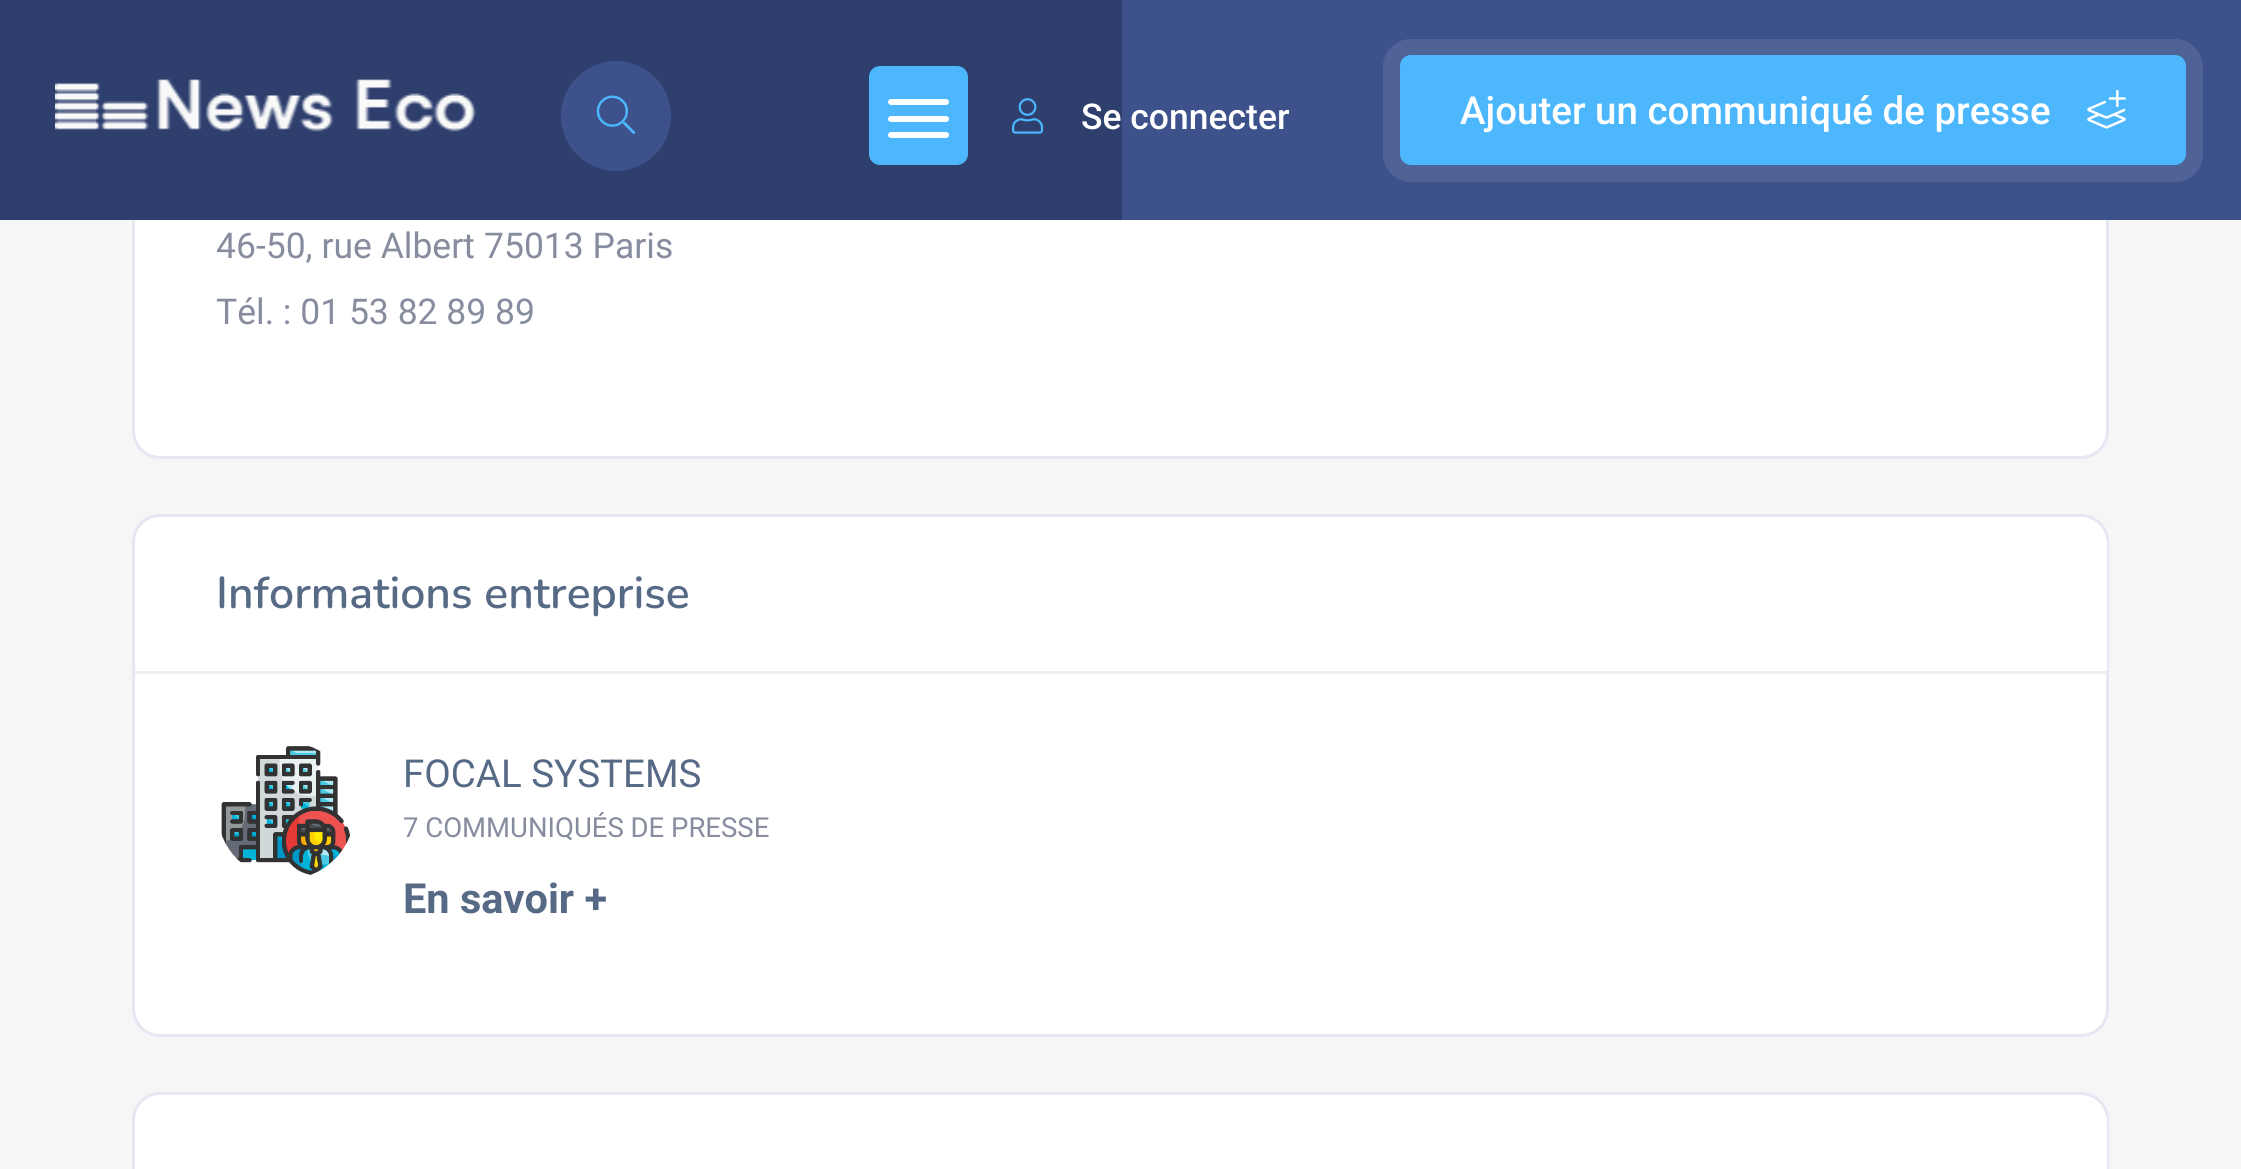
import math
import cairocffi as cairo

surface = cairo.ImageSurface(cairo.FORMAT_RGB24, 2241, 1169)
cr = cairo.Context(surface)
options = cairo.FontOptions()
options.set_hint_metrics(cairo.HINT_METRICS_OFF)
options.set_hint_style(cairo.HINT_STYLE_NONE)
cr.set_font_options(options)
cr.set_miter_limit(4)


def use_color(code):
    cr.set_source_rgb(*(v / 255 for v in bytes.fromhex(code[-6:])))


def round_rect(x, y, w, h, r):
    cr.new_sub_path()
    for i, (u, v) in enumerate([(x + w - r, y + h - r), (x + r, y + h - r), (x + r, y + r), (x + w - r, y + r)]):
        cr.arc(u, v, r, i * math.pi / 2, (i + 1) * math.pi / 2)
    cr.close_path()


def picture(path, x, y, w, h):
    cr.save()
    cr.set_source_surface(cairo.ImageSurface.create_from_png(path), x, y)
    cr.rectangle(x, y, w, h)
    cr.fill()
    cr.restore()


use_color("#f6f6f6")
cr.paint()
use_color("#ffffff")
round_rect(133.5, -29.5, 1974, 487, 26.5)
cr.fill_preserve()
use_color("#e5e7f2")
cr.set_line_width(3)
cr.stroke()
use_color("#2e3f6e")
cr.rectangle(0, 0, 1122, 220)
cr.fill()
picture("img1.png", 55, 79, 421, 53)
use_color("#3d528b")
cr.arc(616, 116, 55, 0, 2 * math.pi)
cr.fill()
picture("img2.png", 596, 95, 40, 39)
use_color("#4db7fe")
round_rect(869, 66, 99, 99, 11)
cr.fill()
use_color("#ffffff")
round_rect(888, 99, 61, 6, 3)
cr.fill()
round_rect(888, 116, 61, 6, 3)
cr.fill()
round_rect(888, 132, 61, 6, 3)
cr.fill()
use_color("#3d528b")
cr.rectangle(1122, 0, 1119, 220)
cr.fill()
picture("img3.png", 1012, 98, 32, 36)
cr.select_font_face("Roboto Medium")
cr.set_font_size(35.5)
use_color("#ffffff")
cr.move_to(1081, 129)
cr.show_text("Se connecter")
round_rect(1391.5, 47.5, 803, 126, 19.5)
use_color("#506397")
cr.set_line_width(17)
cr.stroke()
use_color("#4db7fe")
round_rect(1400, 55, 786, 110, 11)
cr.fill()
cr.set_font_size(38.5)
use_color("#ffffff")
cr.move_to(1460, 124)
cr.show_text("Ajouter un communiqué de presse")
picture("img4.png", 2087, 90, 39, 39)
cr.select_font_face("Roboto")
cr.set_font_size(35.5)
use_color("#878c9f")
cr.move_to(216, 258)
cr.show_text("46-50, rue Albert")
cr.move_to(484, 258)
cr.show_text("75013 Paris")
cr.move_to(216, 324)
cr.show_text("Tél. : 01 53 82 89 89")
use_color("#ffffff")
round_rect(133.5, 515.5, 1974, 520, 26.5)
cr.fill_preserve()
use_color("#e5e7f2")
cr.set_line_width(3)
cr.stroke()
use_color("#ffffff")
cr.new_path()
cr.move_to(163, 517)
cr.line_to(2079, 517)
cr.curve_to(2094.5, 517, 2107, 529.5, 2107, 545)
cr.line_to(2107, 674)
cr.line_to(135, 674)
cr.line_to(135, 545)
cr.curve_to(135, 529.5, 147.5, 517, 163, 517)
cr.close_path()
cr.fill()
use_color("#eeeeee")
cr.rectangle(135, 671, 1972, 3)
cr.fill()
cr.select_font_face("Nunito SemiBold")
cr.set_font_size(44.5)
use_color("#566985")
cr.move_to(216, 608)
cr.show_text("Informations entreprise")
picture("img5.png", 221, 746, 129, 129)
cr.select_font_face("Roboto")
cr.set_font_size(38.5)
cr.move_to(403, 787)
cr.show_text("FOCAL SYSTEMS")
cr.set_font_size(27.5)
use_color("#878c9f")
cr.move_to(403, 837)
cr.show_text("7 COMMUNIQUÉS DE PRESSE")
cr.select_font_face("Roboto", cairo.FONT_SLANT_NORMAL, cairo.FONT_WEIGHT_BOLD)
cr.set_font_size(41.5)
use_color("#566985")
cr.move_to(403, 913)
cr.show_text("En savoir +")
use_color("#ffffff")
round_rect(133.5, 1093.5, 1974, 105, 26.5)
cr.fill_preserve()
use_color("#e5e7f2")
cr.stroke()
use_color("#ffffff")
cr.new_path()
cr.move_to(163, 1095)
cr.line_to(2079, 1095)
cr.curve_to(2094.5, 1095, 2107, 1107.5, 2107, 1123)
cr.line_to(2107, 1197)
cr.line_to(135, 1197)
cr.line_to(135, 1123)
cr.curve_to(135, 1107.5, 147.5, 1095, 163, 1095)
cr.close_path()
cr.fill()
surface.write_to_png("result.png")
